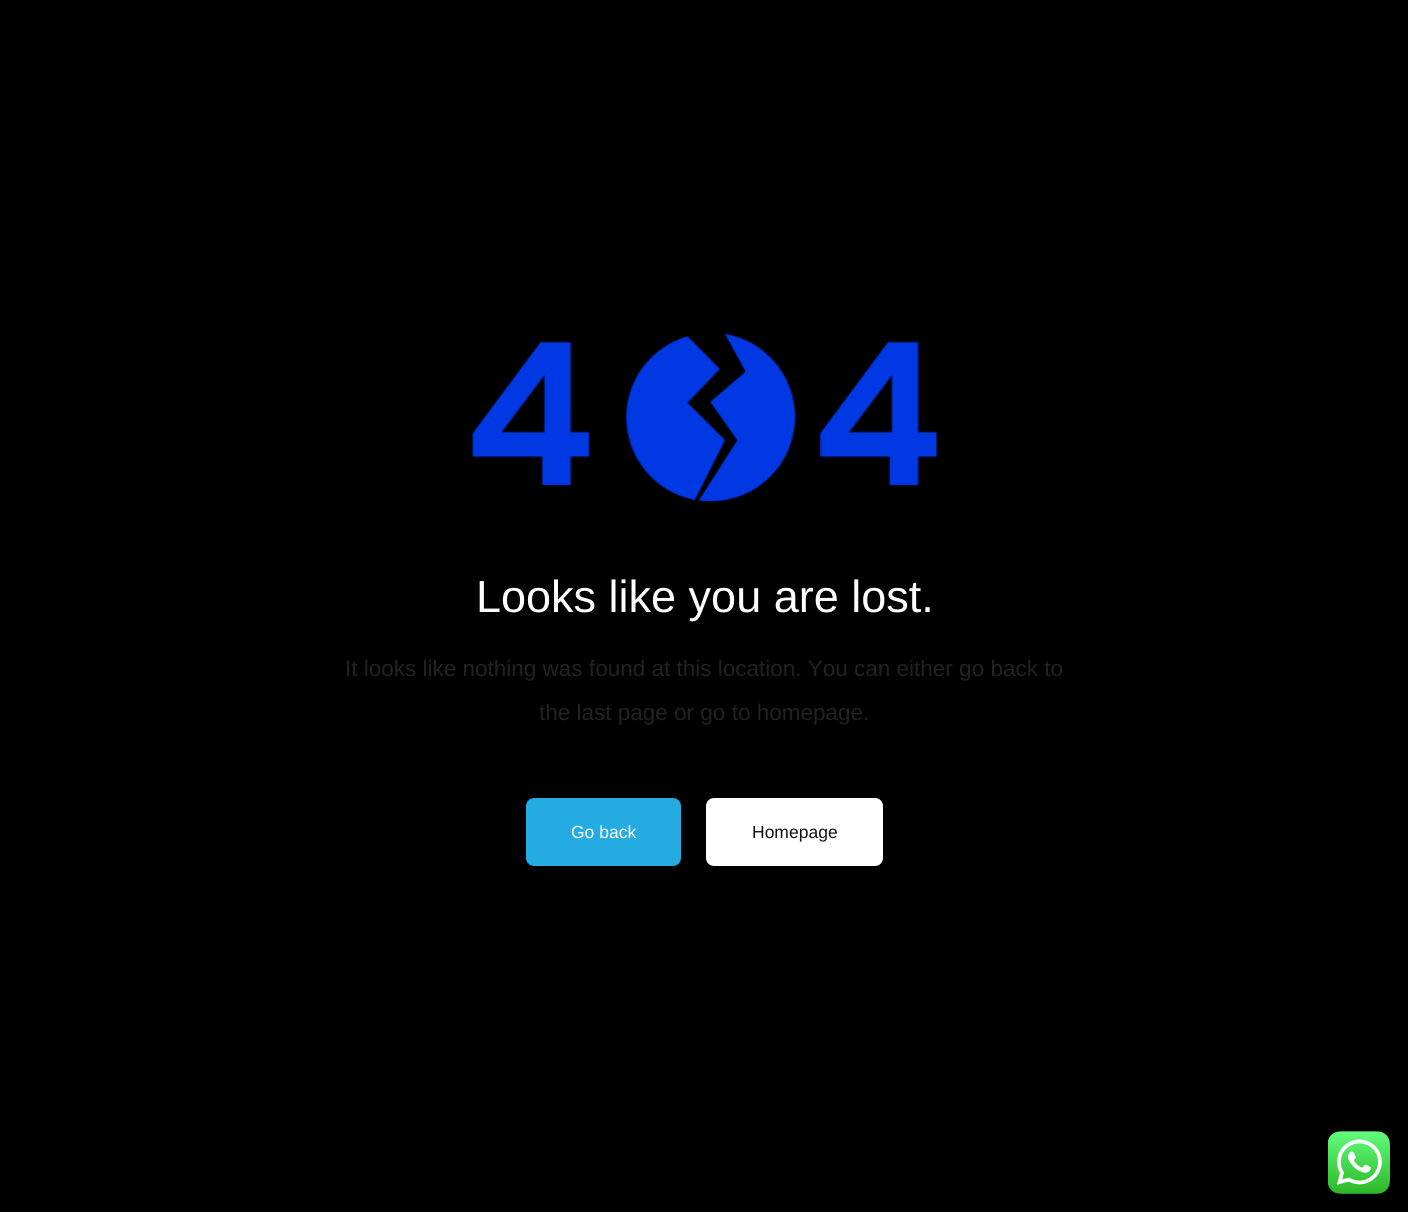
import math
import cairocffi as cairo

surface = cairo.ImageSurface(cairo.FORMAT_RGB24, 1408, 1212)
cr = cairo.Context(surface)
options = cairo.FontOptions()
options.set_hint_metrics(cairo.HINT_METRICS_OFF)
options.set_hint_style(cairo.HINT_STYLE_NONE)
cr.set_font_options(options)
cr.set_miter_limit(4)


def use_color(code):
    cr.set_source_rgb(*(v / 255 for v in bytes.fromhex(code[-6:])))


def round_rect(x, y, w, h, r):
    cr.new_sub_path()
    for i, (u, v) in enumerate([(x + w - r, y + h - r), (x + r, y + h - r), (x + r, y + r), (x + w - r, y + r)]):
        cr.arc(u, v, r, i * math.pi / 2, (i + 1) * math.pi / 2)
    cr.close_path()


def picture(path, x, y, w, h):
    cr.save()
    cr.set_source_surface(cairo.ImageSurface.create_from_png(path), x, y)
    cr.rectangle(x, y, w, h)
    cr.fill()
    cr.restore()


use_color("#000000")
cr.paint()
picture("img1.png", 472, 333, 466, 169)
cr.select_font_face("Liberation Sans")
cr.set_font_size(45)
use_color("#ffffff")
cr.move_to(476, 612)
cr.show_text("Looks like you are lost.")
cr.set_font_size(22.5)
use_color("#222222")
cr.move_to(345, 676)
cr.show_text("It looks like nothing was found at this location. You can either go back to")
cr.move_to(539, 720)
cr.show_text("the last page or go to homepage.")
use_color("#23abe2")
round_rect(526, 798, 155, 68, 8)
cr.fill()
cr.set_font_size(17.5)
use_color("#ffffff")
cr.move_to(571, 838)
cr.show_text("Go back")
round_rect(706, 798, 177, 68, 8)
cr.fill()
use_color("#111111")
cr.move_to(752, 838)
cr.show_text("Homepage")
picture("img2.png", 1328, 1131, 62, 63)
surface.write_to_png("result.png")
